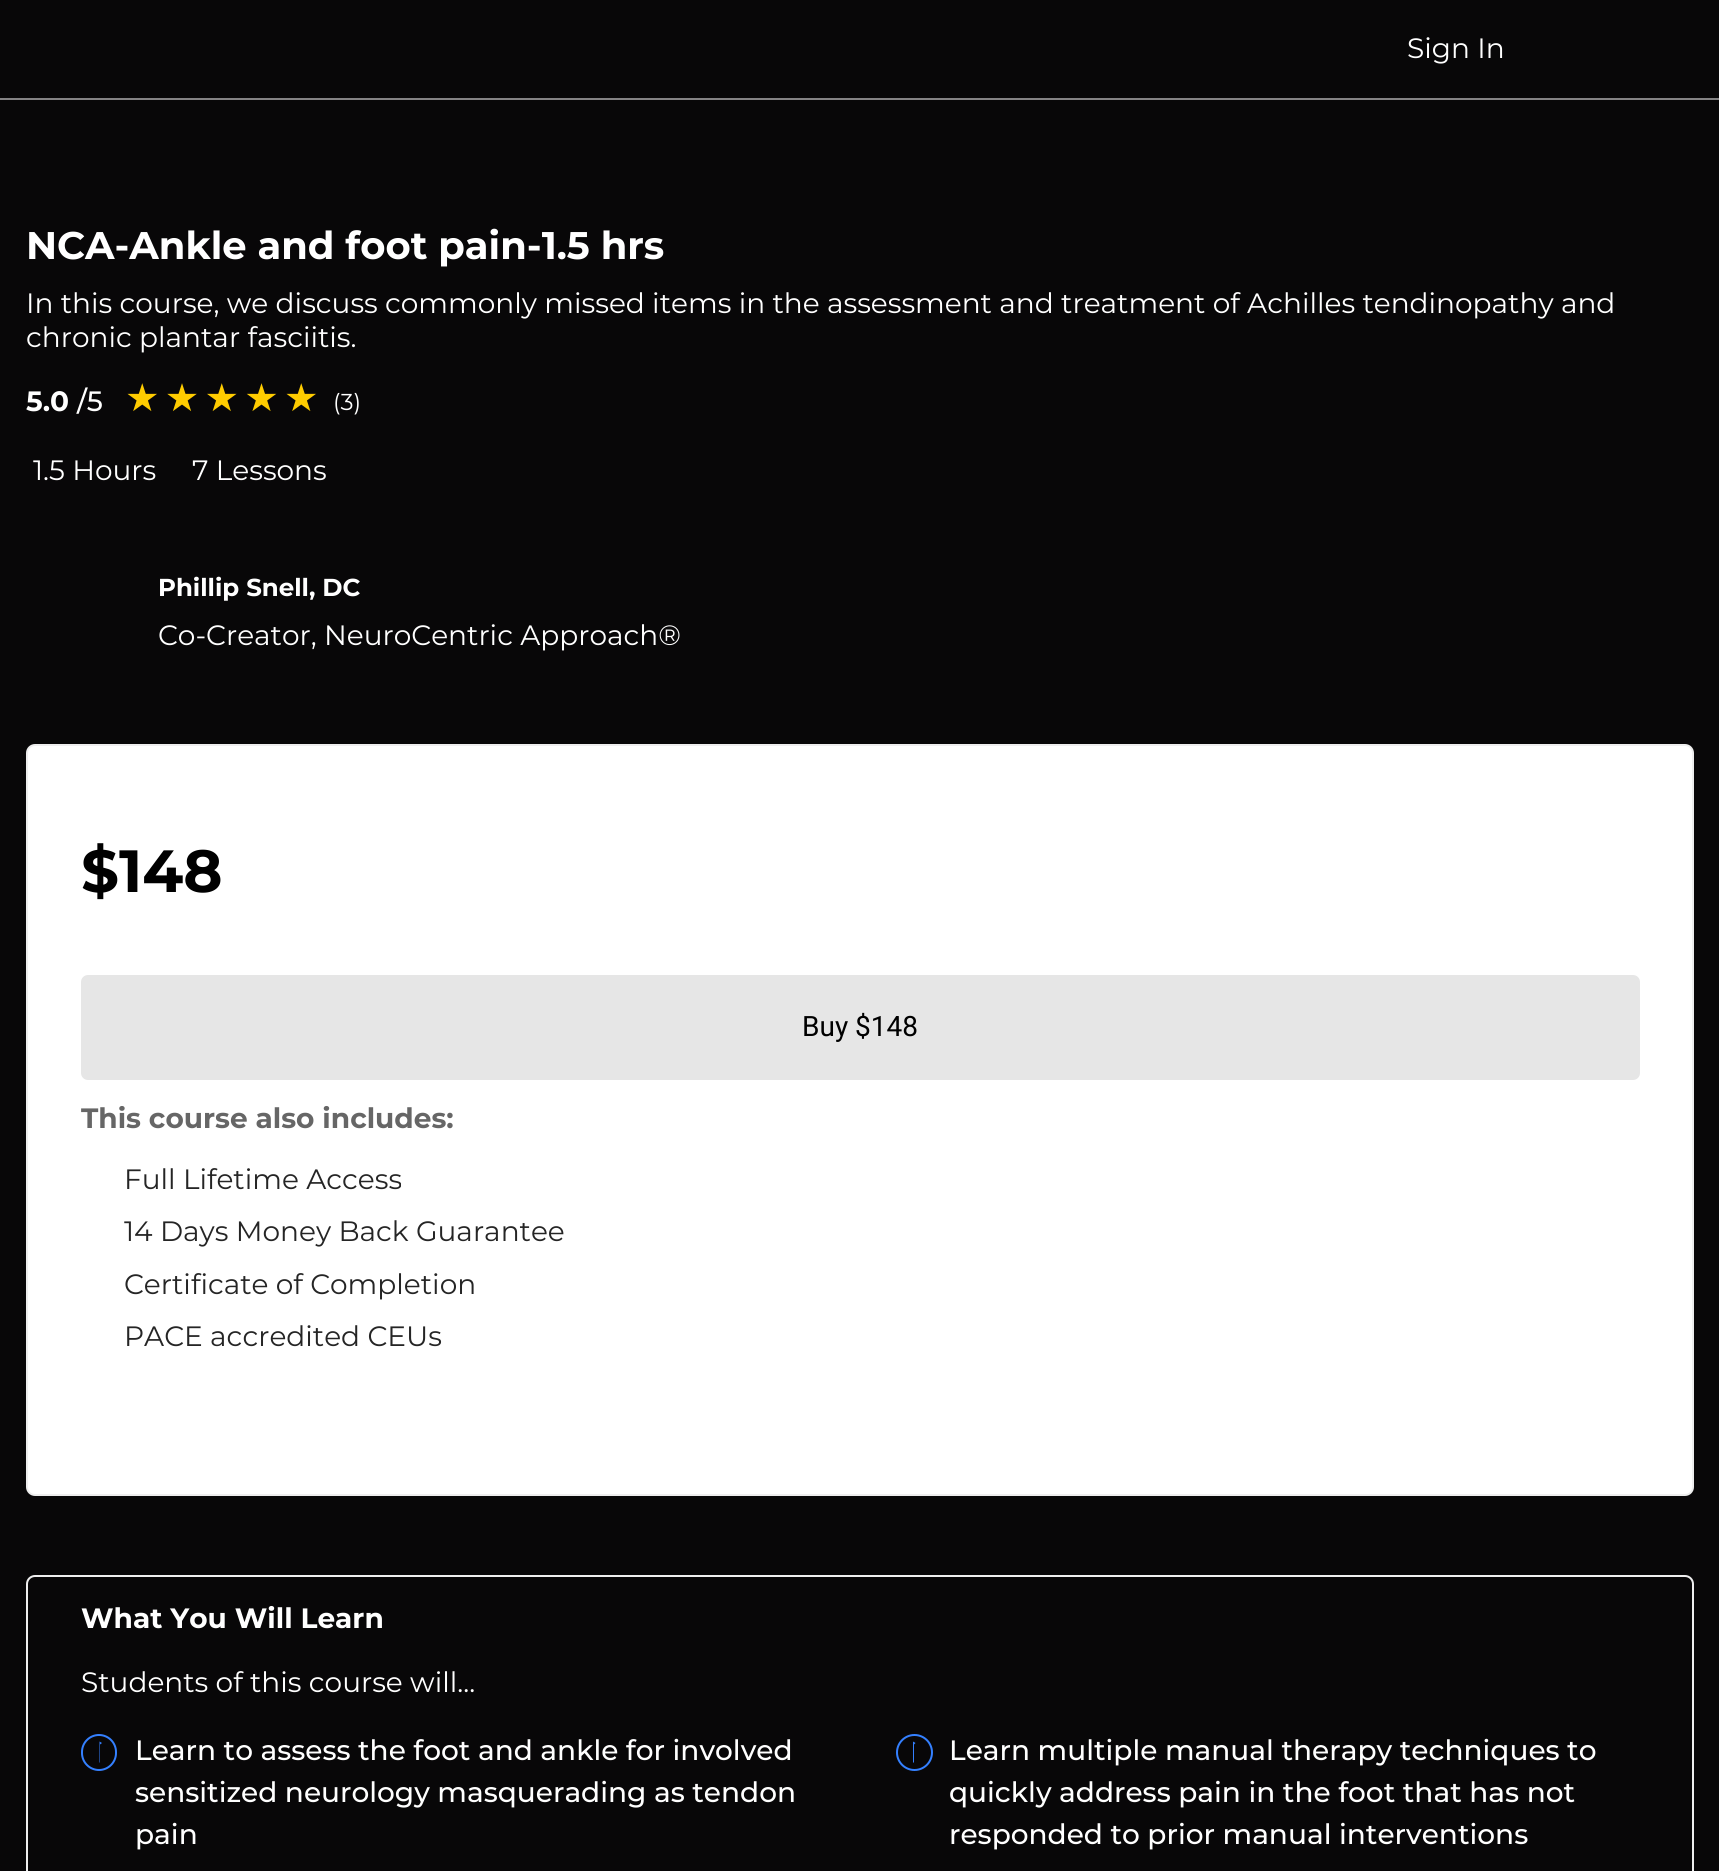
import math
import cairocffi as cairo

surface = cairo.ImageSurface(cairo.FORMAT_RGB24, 1719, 1871)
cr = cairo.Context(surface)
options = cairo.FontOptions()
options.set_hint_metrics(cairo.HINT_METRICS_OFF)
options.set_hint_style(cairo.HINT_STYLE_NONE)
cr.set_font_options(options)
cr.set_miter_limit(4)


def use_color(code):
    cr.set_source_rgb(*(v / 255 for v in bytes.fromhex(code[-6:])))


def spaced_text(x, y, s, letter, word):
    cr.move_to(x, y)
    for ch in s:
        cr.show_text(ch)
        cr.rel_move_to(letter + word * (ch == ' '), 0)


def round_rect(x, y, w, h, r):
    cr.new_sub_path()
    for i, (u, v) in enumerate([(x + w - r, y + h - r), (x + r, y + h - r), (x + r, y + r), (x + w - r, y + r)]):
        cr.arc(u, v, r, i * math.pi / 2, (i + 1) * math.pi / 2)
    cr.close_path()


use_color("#080708")
cr.paint()
use_color("#848384")
cr.rectangle(0, 98, 1719, 2)
cr.fill()
cr.select_font_face("Montserrat")
cr.set_font_size(28)
use_color("#ffffff")
cr.move_to(1407, 58)
cr.show_text("Sign In")
cr.select_font_face("Montserrat", cairo.FONT_SLANT_NORMAL, cairo.FONT_WEIGHT_BOLD)
cr.set_font_size(38.5)
cr.move_to(26, 259)
cr.show_text("NCA-Ankle and foot pain-1.5 hrs")
cr.select_font_face("Montserrat")
cr.set_font_size(28)
cr.move_to(26, 313)
cr.show_text("In this course, we discuss commonly missed items in the assessment and treatment of Achilles tendinopathy and")
cr.move_to(26, 347)
cr.show_text("chronic plantar fasciitis.")
cr.select_font_face("Montserrat", cairo.FONT_SLANT_NORMAL, cairo.FONT_WEIGHT_BOLD)
cr.move_to(26, 411)
cr.show_text("5.0")
cr.select_font_face("Montserrat Medium")
cr.move_to(77, 411)
cr.show_text("/5")
cr.select_font_face("DejaVu Sans")
cr.set_font_size(38.5)
gradient = cairo.LinearGradient(125, 398, 324, 398)
gradient.add_color_stop_rgba(1, 1, 0.8, 0, 1)
gradient.add_color_stop_rgba(1, 0.8, 0.8, 0.8, 1)
cr.set_source(gradient)
spaced_text(125, 411, "★★★★★", 5.25, 0)
cr.select_font_face("Montserrat")
cr.set_font_size(23)
use_color("#ffffff")
cr.move_to(333, 410)
cr.show_text("(3)")
cr.set_font_size(28)
cr.move_to(33, 480)
cr.show_text("1.5 Hours")
cr.move_to(192, 480)
cr.show_text("7 Lessons")
cr.select_font_face("Montserrat", cairo.FONT_SLANT_NORMAL, cairo.FONT_WEIGHT_BOLD)
cr.set_font_size(24.5)
cr.move_to(158, 596)
cr.show_text("Phillip Snell, DC")
cr.select_font_face("Montserrat")
cr.set_font_size(28)
cr.move_to(158, 645)
cr.show_text("Co-Creator, NeuroCentric Approach®")
round_rect(27, 745, 1666, 750, 8)
cr.fill_preserve()
use_color("#eeeeee")
cr.stroke()
cr.select_font_face("Montserrat", cairo.FONT_SLANT_NORMAL, cairo.FONT_WEIGHT_BOLD)
cr.set_font_size(59.5)
use_color("#000000")
cr.move_to(81, 892)
cr.show_text("$148")
use_color("#e6e6e6")
round_rect(81, 975, 1559, 105, 7)
cr.fill()
cr.select_font_face("Roboto")
cr.set_font_size(28)
use_color("#000000")
cr.move_to(802, 1036)
cr.show_text("Buy $148")
cr.select_font_face("Montserrat", cairo.FONT_SLANT_NORMAL, cairo.FONT_WEIGHT_BOLD)
use_color("#666666")
cr.move_to(81, 1128)
cr.show_text("This course also includes:")
cr.select_font_face("Montserrat")
use_color("#252525")
cr.move_to(124, 1189)
cr.show_text("Full Lifetime Access")
cr.move_to(124, 1241)
cr.show_text("14 Days Money Back Guarantee")
cr.move_to(124, 1294)
cr.show_text("Certificate of Completion")
cr.move_to(124, 1346)
cr.show_text("PACE accredited CEUs")
round_rect(27, 1576, 1666, 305, 8)
use_color("#eeeeee")
cr.stroke()
cr.select_font_face("Montserrat", cairo.FONT_SLANT_NORMAL, cairo.FONT_WEIGHT_BOLD)
use_color("#ffffff")
cr.move_to(81, 1628)
cr.show_text("What You Will Learn")
cr.select_font_face("Montserrat")
cr.move_to(81, 1692)
cr.show_text("Students of this course will...")
round_rect(82, 1735, 34, 35, 17)
use_color("#3480ff")
cr.stroke()
cr.new_path()
cr.move_to(102, 1743)
cr.line_to(100, 1744.5)
cr.line_to(100, 1762.5)
cr.line_to(99.5, 1762.5)
cr.line_to(99.5, 1741.5)
cr.close_path()
cr.fill()
cr.select_font_face("Montserrat Medium")
use_color("#ffffff")
cr.move_to(135, 1760)
cr.show_text("Learn to assess the foot and ankle for involved")
cr.move_to(135, 1802)
cr.show_text("sensitized neurology masquerading as tendon")
cr.move_to(135, 1844)
cr.show_text("pain")
cr.new_path()
cr.arc(914.5, 1752.5, 17.5, 0, 2 * math.pi)
use_color("#3480ff")
cr.stroke()
cr.new_path()
cr.move_to(915.5, 1743)
cr.line_to(914, 1744.5)
cr.line_to(914, 1762.5)
cr.line_to(913, 1762.5)
cr.line_to(913, 1741.5)
cr.close_path()
cr.fill()
use_color("#ffffff")
cr.move_to(949, 1760)
cr.show_text("Learn multiple manual therapy techniques to")
cr.move_to(949, 1802)
cr.show_text("quickly address pain in the foot that has not")
cr.move_to(949, 1844)
cr.show_text("responded to prior manual interventions")
surface.write_to_png("result.png")
